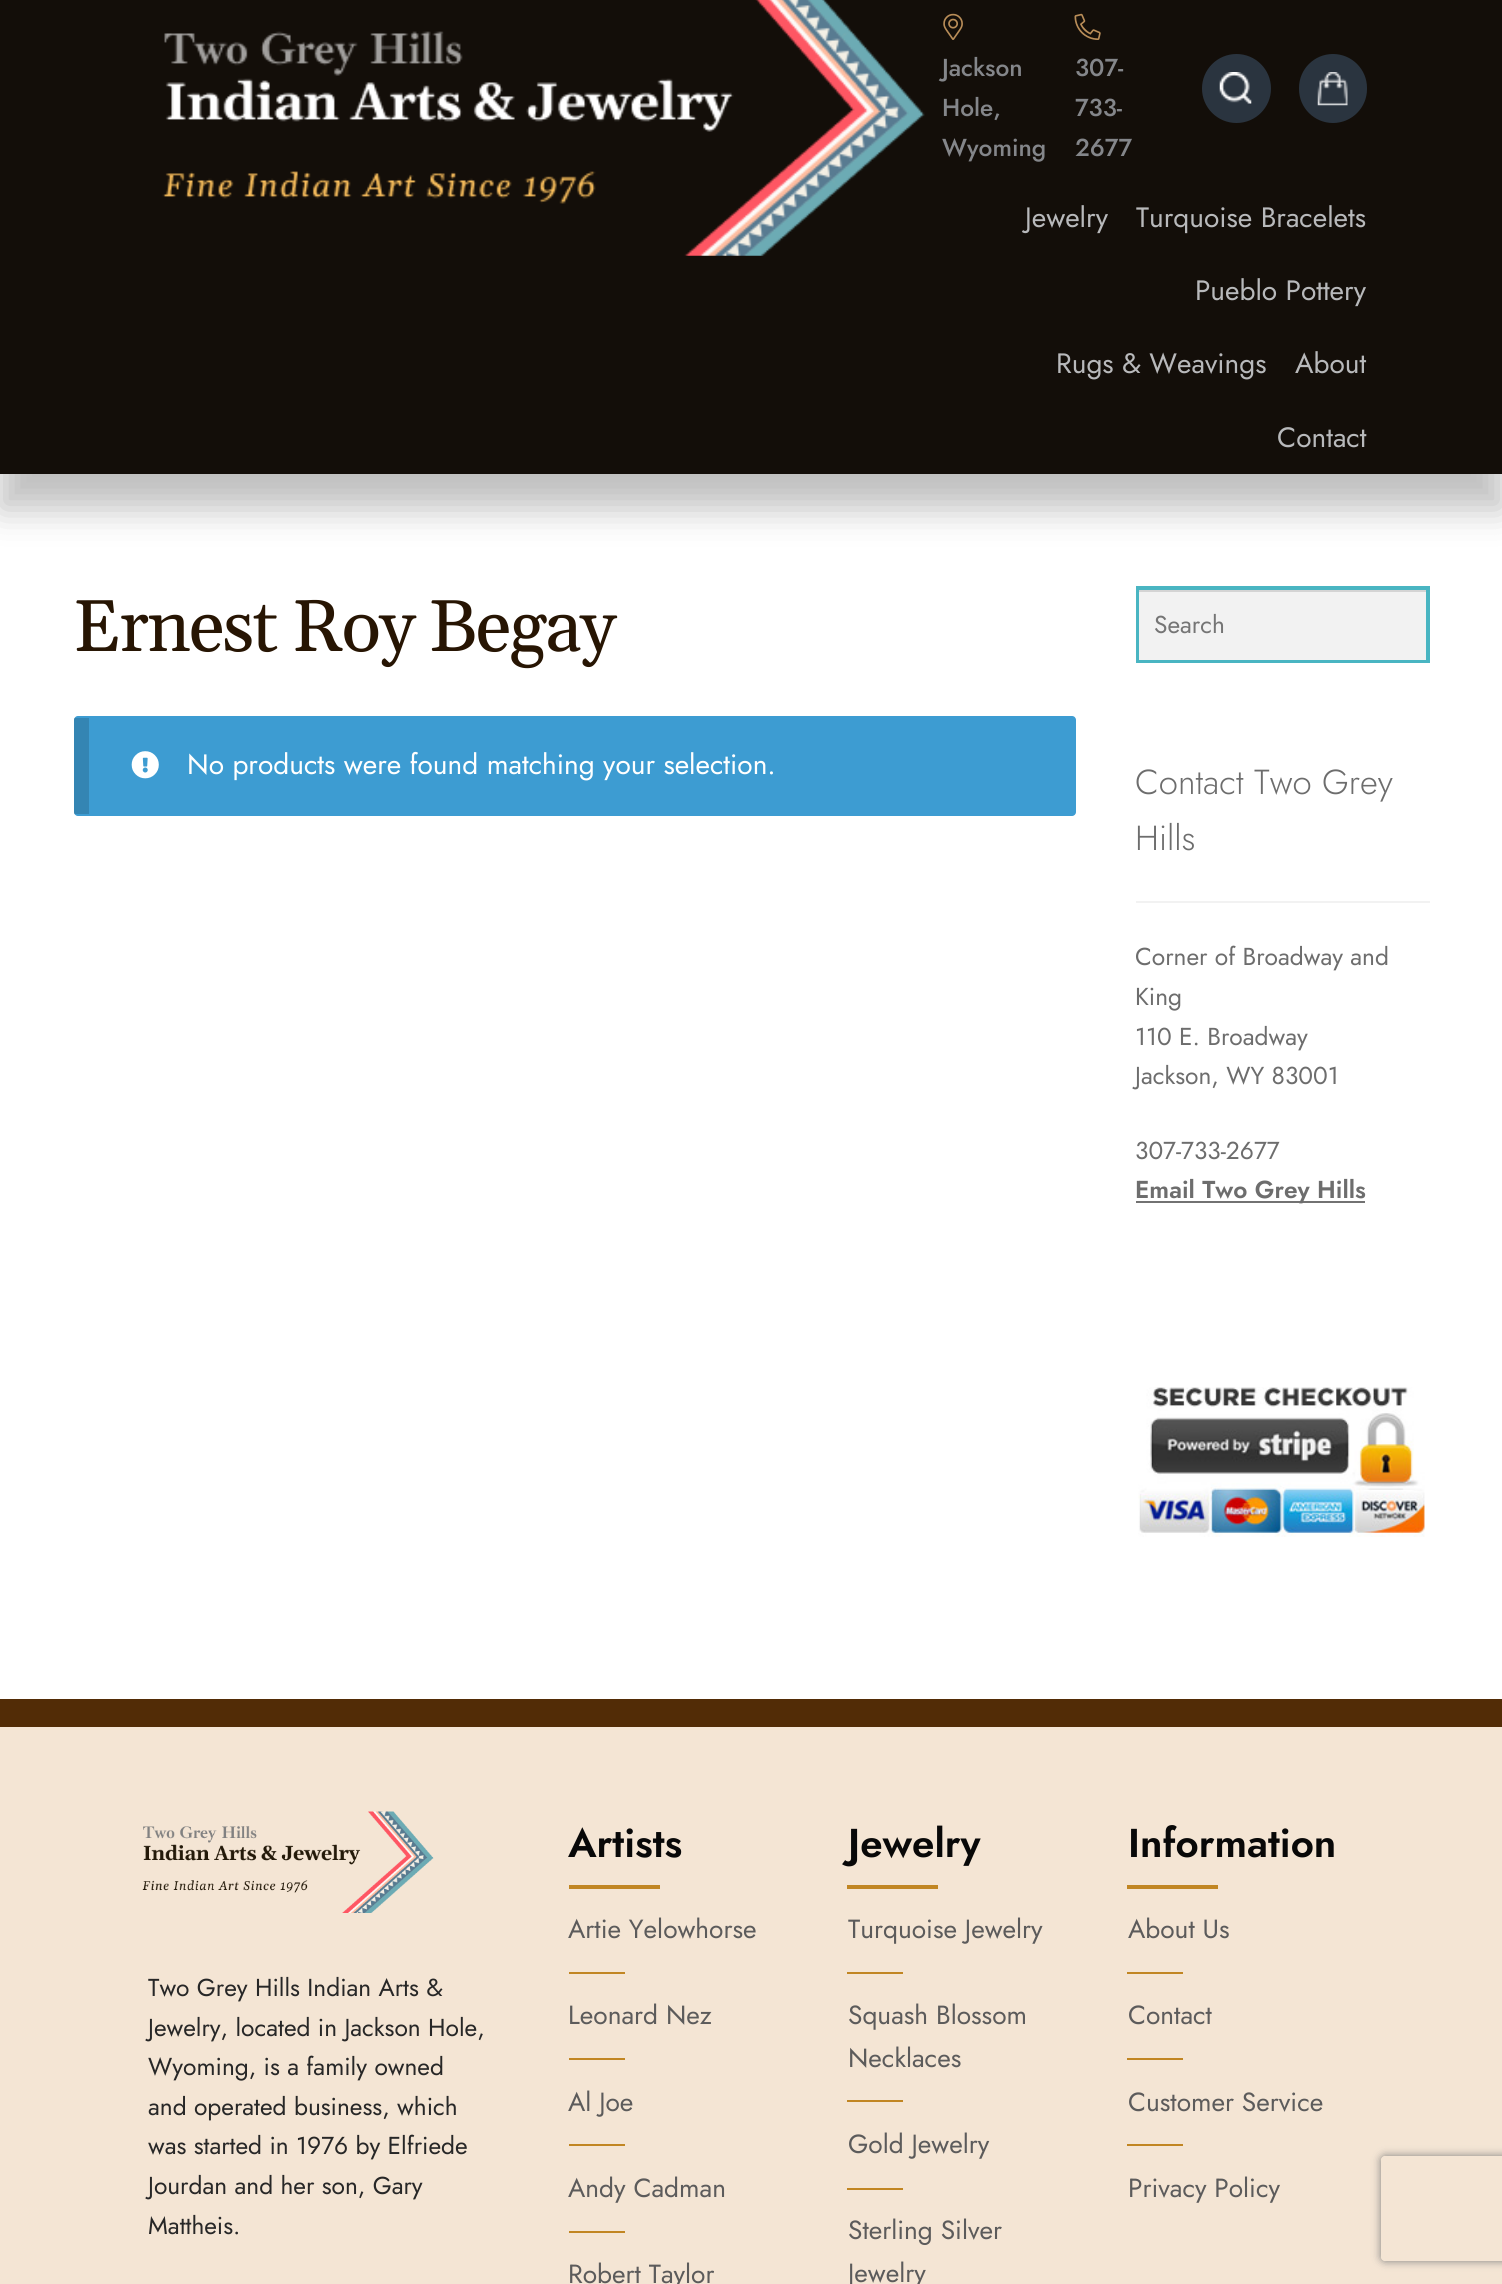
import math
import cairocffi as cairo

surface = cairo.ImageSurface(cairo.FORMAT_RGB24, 1502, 2284)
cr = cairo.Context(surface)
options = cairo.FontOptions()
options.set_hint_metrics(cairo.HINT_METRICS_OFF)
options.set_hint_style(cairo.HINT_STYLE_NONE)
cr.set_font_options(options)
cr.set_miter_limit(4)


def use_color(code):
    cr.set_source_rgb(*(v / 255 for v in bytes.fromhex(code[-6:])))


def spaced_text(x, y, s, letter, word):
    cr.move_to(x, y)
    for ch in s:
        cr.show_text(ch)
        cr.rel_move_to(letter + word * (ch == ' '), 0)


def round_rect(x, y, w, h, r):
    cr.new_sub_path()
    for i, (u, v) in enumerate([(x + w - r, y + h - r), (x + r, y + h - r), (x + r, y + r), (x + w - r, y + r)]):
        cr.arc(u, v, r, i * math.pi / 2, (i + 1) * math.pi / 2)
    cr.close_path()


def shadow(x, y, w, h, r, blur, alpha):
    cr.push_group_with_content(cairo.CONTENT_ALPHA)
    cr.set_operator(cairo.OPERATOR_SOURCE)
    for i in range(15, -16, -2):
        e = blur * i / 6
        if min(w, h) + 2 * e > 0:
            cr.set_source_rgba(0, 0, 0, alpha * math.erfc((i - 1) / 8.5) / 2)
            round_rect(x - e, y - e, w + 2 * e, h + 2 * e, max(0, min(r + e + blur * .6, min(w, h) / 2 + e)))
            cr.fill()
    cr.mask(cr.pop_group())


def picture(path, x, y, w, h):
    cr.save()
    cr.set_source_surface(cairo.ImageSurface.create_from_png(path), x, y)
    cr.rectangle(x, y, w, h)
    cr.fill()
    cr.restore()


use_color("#ffffff")
cr.paint()
use_color("#000000")
shadow(0, 30, 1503, 479, 0, 17.5, 0.25)
use_color("#130e09")
cr.rectangle(0, 0, 1502, 474)
cr.fill()
picture("img1.png", 162, 0, 763, 256)
picture("img2.png", 943, 13, 20, 27)
cr.select_font_face("Jost Medium")
cr.set_font_size(24.5)
use_color("#84868a")
cr.move_to(942, 76)
cr.show_text("Jackson")
cr.move_to(942, 116)
cr.show_text("Hole,")
cr.move_to(942, 156)
cr.show_text("Wyoming")
picture("img3.png", 1074, 13, 27, 27)
cr.move_to(1075, 76)
cr.show_text("307-")
cr.move_to(1075, 116)
cr.show_text("733-")
cr.move_to(1075, 156)
cr.show_text("2677")
use_color("#2a343f")
cr.new_path()
cr.arc(1236.5, 88.5, 33.5, 0, 2 * math.pi)
cr.fill_preserve()
cr.stroke()
picture("img4.png", 1219, 72, 33, 32)
round_rect(1300, 55, 66, 67, 33)
cr.fill_preserve()
cr.stroke()
picture("img5.png", 1317, 72, 31, 34)
cr.select_font_face("Jost")
cr.set_font_size(28)
use_color("#b8b9bb")
cr.move_to(1025, 227)
cr.show_text("Jewelry")
cr.move_to(1136, 227)
cr.show_text("Turquoise Bracelets")
cr.move_to(1195, 300)
cr.show_text("Pueblo Pottery")
cr.move_to(1056, 373)
cr.show_text("Rugs & Weavings")
cr.move_to(1295, 373)
cr.show_text("About")
cr.move_to(1277, 447)
cr.show_text("Contact")
cr.select_font_face("Gelasio")
cr.set_font_size(73.25)
use_color("#271503")
spaced_text(73, 651, "Ernest Roy Begay", -1.75, 0)
use_color("#3d9cd2")
round_rect(74, 716, 1002, 100, 4)
cr.fill()
cr.set_source_rgba(0, 0, 0, 0.15)
cr.rectangle(74, 718, 15, 96)
cr.fill()
picture("img6.png", 131, 751, 28, 28)
cr.select_font_face("Jost")
cr.set_font_size(28)
use_color("#ffffff")
cr.move_to(187, 774)
cr.show_text("No products were found matching your selection.")
cr.rectangle(1138, 588, 290, 73)
use_color("#49b5c2")
cr.set_line_width(4)
cr.stroke()
use_color("#f2f2f2")
cr.rectangle(1139, 592, 287, 68)
cr.fill()
use_color("#d4d4d4")
cr.rectangle(1139, 590, 287, 2)
cr.fill()
cr.set_font_size(24.5)
use_color("#757575")
cr.move_to(1154, 633)
cr.show_text("Search")
use_color("#f2f2f2")
cr.rectangle(1136, 901, 294, 2)
cr.fill()
cr.select_font_face("Jost Light")
cr.set_font_size(34.75)
use_color("#6d6d6d")
cr.move_to(1135, 794)
cr.show_text("Contact Two Grey")
cr.move_to(1135, 850)
cr.show_text("Hills")
cr.select_font_face("Jost")
cr.set_font_size(24.5)
cr.move_to(1135, 965)
cr.show_text("Corner of Broadway and")
cr.move_to(1135, 1005)
cr.show_text("King")
cr.move_to(1135, 1045)
cr.show_text("110 E. Broadway")
cr.move_to(1135, 1084)
cr.show_text("Jackson, WY 83001")
cr.move_to(1135, 1159)
cr.show_text("307-733-2677")
use_color("#727272")
cr.rectangle(1136, 1201, 229, 2)
cr.fill()
cr.select_font_face("Jost SemiBold")
use_color("#6d6d6d")
cr.move_to(1135, 1198)
cr.show_text("Email Two Grey Hills")
picture("img7.png", 1138, 1387, 287, 150)
use_color("#f4e5d4")
cr.rectangle(0, 1727, 1502, 557)
cr.fill()
use_color("#522c06")
cr.rectangle(0, 1699, 1502, 28)
cr.fill()
picture("img8.png", 142, 1811, 292, 102)
cr.select_font_face("Jost")
use_color("#272727")
cr.move_to(148, 1996)
cr.show_text("Two Grey Hills Indian Arts &")
cr.move_to(148, 2036)
cr.show_text("Jewelry, located in Jackson Hole,")
cr.move_to(148, 2075)
cr.show_text("Wyoming, is a family owned")
cr.move_to(148, 2115)
cr.show_text("and operated business, which")
cr.move_to(148, 2154)
cr.show_text("was started in 1976 by Elfriede")
cr.move_to(148, 2194)
cr.show_text("Jourdan and her son, Gary")
cr.move_to(148, 2234)
cr.show_text("Mattheis.")
cr.select_font_face("Jost SemiBold")
cr.set_font_size(40.25)
use_color("#080808")
cr.move_to(568, 1857)
cr.show_text("Artists")
use_color("#c18623")
cr.rectangle(569, 1885, 91, 4)
cr.fill()
cr.select_font_face("Jost")
cr.set_font_size(26.25)
use_color("#5c5b5b")
cr.move_to(568, 1938)
cr.show_text("Artie Yelowhorse")
use_color("#c18623")
cr.rectangle(569, 1972, 56, 2)
cr.fill()
use_color("#5c5b5b")
cr.move_to(568, 2024)
cr.show_text("Leonard Nez")
use_color("#c18623")
cr.rectangle(569, 2058, 56, 2)
cr.fill()
use_color("#5c5b5b")
cr.move_to(568, 2111)
cr.show_text("Al Joe")
use_color("#c18623")
cr.rectangle(569, 2144, 56, 2)
cr.fill()
use_color("#5c5b5b")
cr.move_to(568, 2197)
cr.show_text("Andy Cadman")
use_color("#c18623")
cr.rectangle(569, 2231, 56, 2)
cr.fill()
use_color("#5c5b5b")
cr.move_to(568, 2283)
cr.show_text("Robert Taylor")
cr.select_font_face("Jost SemiBold")
cr.set_font_size(40.25)
use_color("#080808")
cr.move_to(848, 1857)
cr.show_text("Jewelry")
use_color("#c18623")
cr.rectangle(847, 1885, 91, 4)
cr.fill()
cr.select_font_face("Jost")
cr.set_font_size(26.25)
use_color("#5c5b5b")
cr.move_to(848, 1938)
cr.show_text("Turquoise Jewelry")
use_color("#c18623")
cr.rectangle(847, 1972, 56, 2)
cr.fill()
use_color("#5c5b5b")
cr.move_to(848, 2024)
cr.show_text("Squash Blossom")
cr.move_to(848, 2067)
cr.show_text("Necklaces")
use_color("#c18623")
cr.rectangle(847, 2100, 56, 2)
cr.fill()
use_color("#5c5b5b")
cr.move_to(848, 2153)
cr.show_text("Gold Jewelry")
use_color("#c18623")
cr.rectangle(847, 2188, 56, 2)
cr.fill()
use_color("#5c5b5b")
cr.move_to(848, 2239)
cr.show_text("Sterling Silver")
cr.move_to(848, 2282)
cr.show_text("Jewelry")
cr.select_font_face("Jost SemiBold")
cr.set_font_size(40.25)
use_color("#080808")
cr.move_to(1128, 1857)
cr.show_text("Information")
use_color("#c18623")
cr.rectangle(1127, 1885, 91, 4)
cr.fill()
cr.select_font_face("Jost")
cr.set_font_size(26.25)
use_color("#5c5b5b")
cr.move_to(1128, 1938)
cr.show_text("About Us")
use_color("#c18623")
cr.rectangle(1127, 1972, 56, 2)
cr.fill()
use_color("#5c5b5b")
cr.move_to(1128, 2024)
cr.show_text("Contact")
use_color("#c18623")
cr.rectangle(1127, 2058, 56, 2)
cr.fill()
use_color("#5c5b5b")
cr.move_to(1128, 2111)
cr.show_text("Customer Service")
use_color("#c18623")
cr.rectangle(1127, 2144, 56, 2)
cr.fill()
use_color("#5c5b5b")
cr.move_to(1128, 2197)
cr.show_text("Privacy Policy")
cr.save()
cr.set_fill_rule(cairo.FILL_RULE_EVEN_ODD)
cr.new_path()
cr.move_to(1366, 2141)
cr.line_to(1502, 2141)
cr.line_to(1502, 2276)
cr.line_to(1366, 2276)
cr.close_path()
cr.move_to(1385, 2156)
cr.line_to(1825, 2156)
cr.curve_to(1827, 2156, 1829, 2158, 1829, 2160)
cr.line_to(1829, 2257)
cr.curve_to(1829, 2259, 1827, 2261, 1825, 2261)
cr.line_to(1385, 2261)
cr.curve_to(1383, 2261, 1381, 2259, 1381, 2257)
cr.line_to(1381, 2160)
cr.curve_to(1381, 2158, 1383, 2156, 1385, 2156)
cr.close_path()
cr.clip()
use_color("#808080")
shadow(1381, 2156, 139, 105, 4, 4.5, 1)
cr.restore()
surface.write_to_png("result.png")
